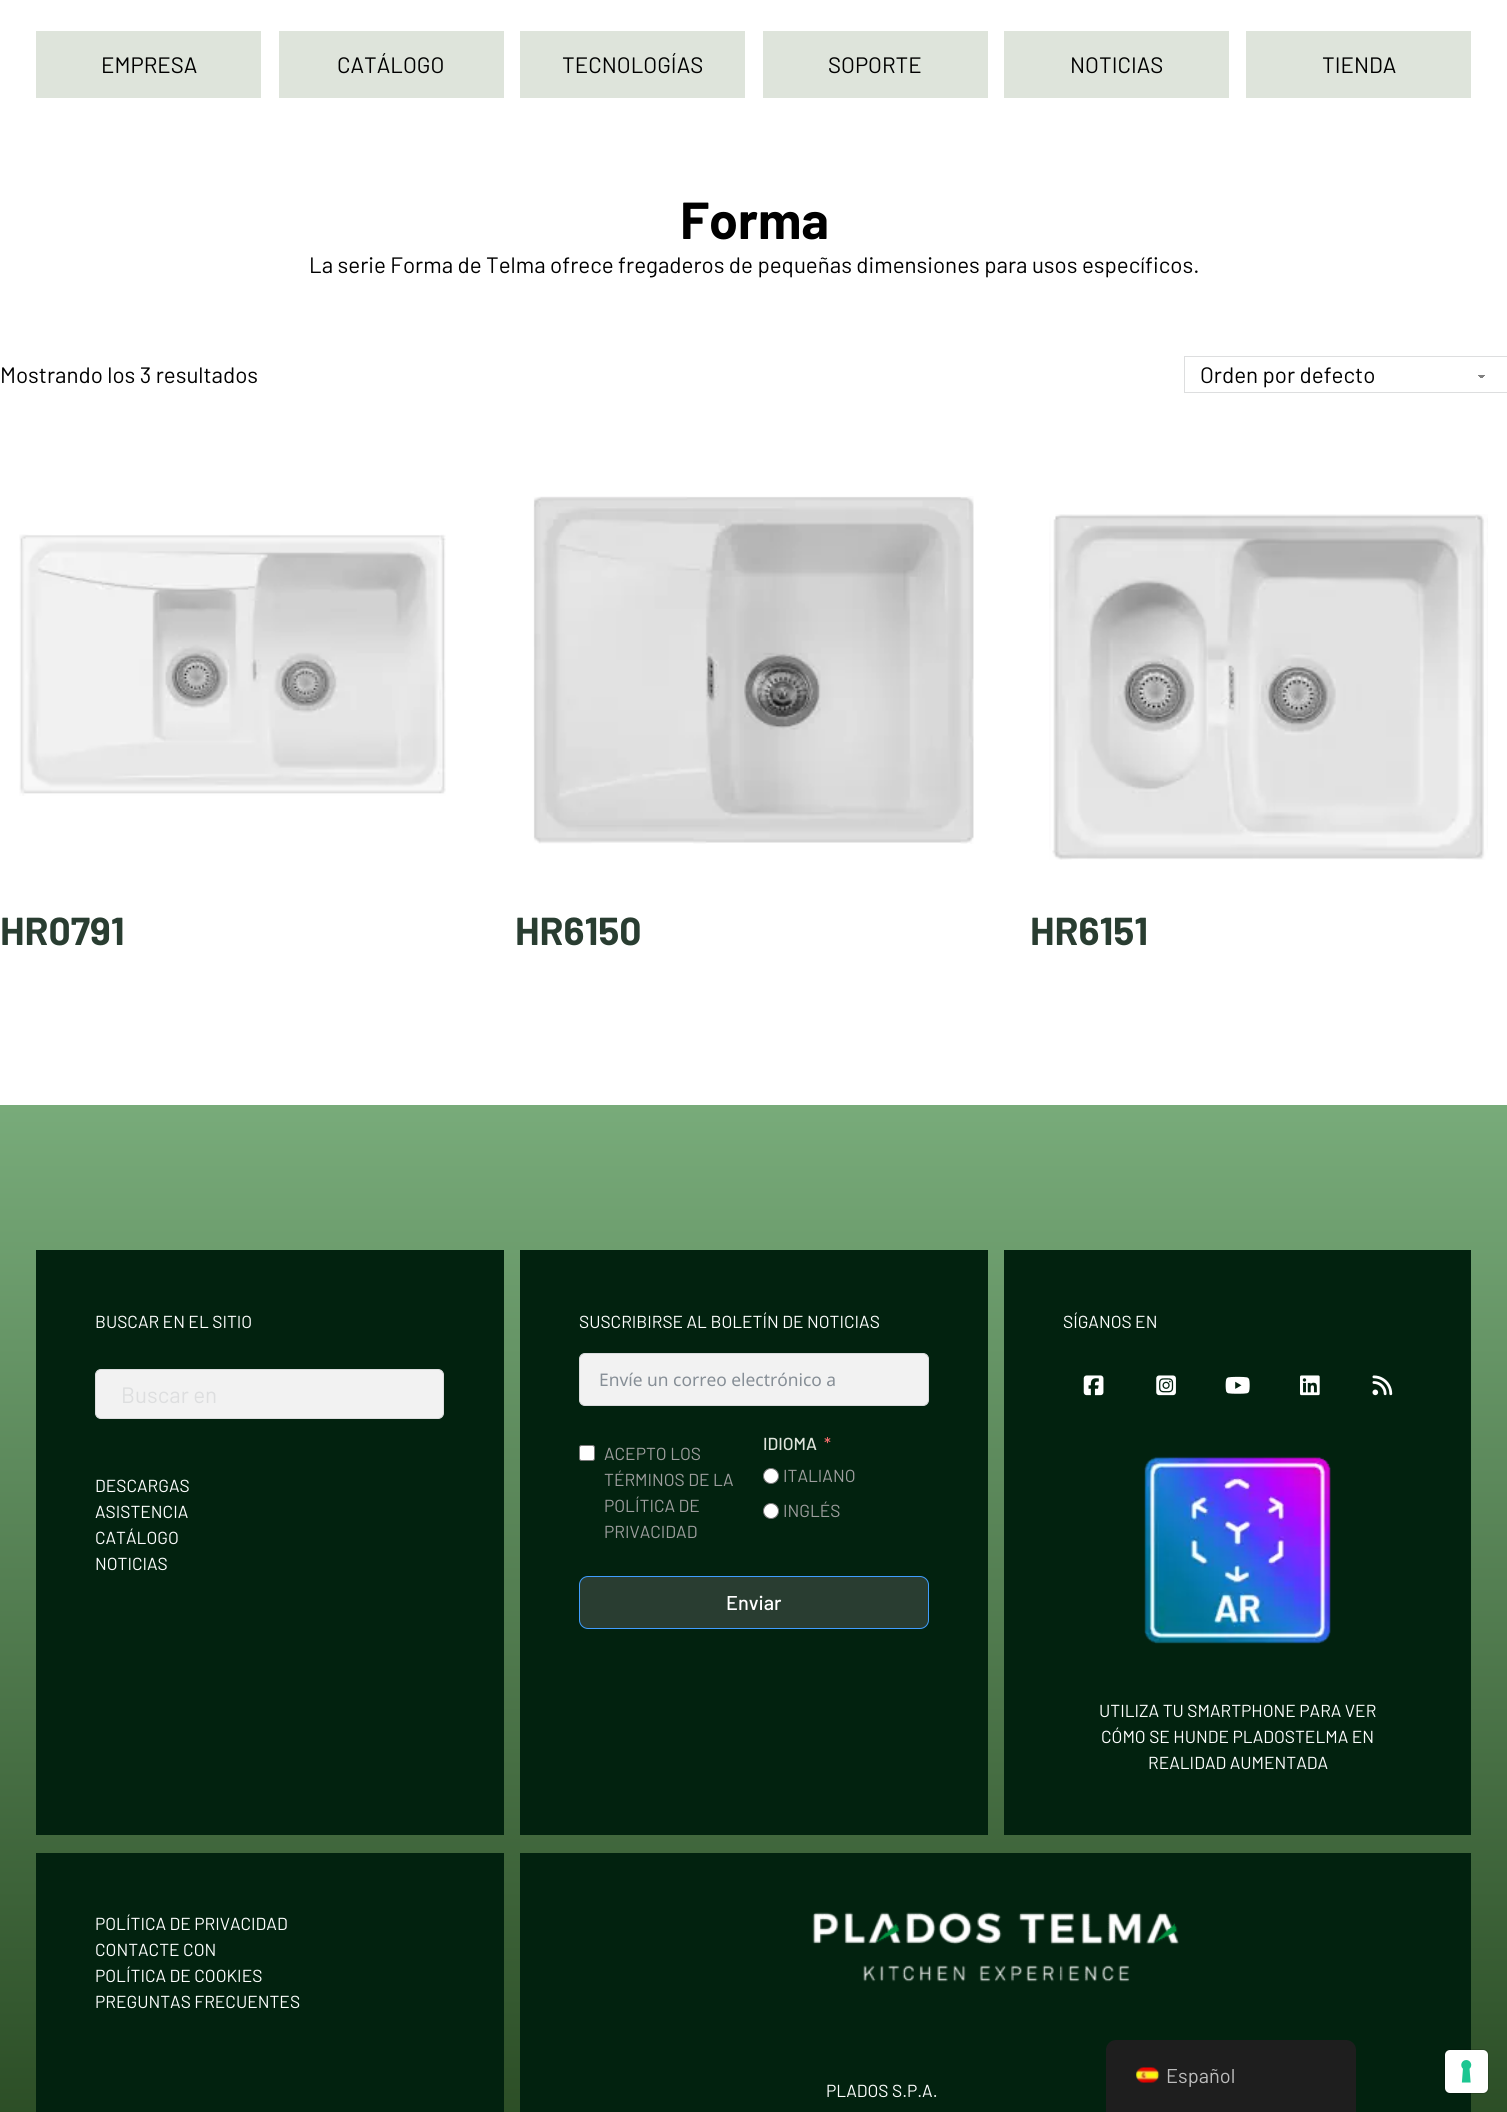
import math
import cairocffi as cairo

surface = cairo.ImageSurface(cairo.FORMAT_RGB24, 1507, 2112)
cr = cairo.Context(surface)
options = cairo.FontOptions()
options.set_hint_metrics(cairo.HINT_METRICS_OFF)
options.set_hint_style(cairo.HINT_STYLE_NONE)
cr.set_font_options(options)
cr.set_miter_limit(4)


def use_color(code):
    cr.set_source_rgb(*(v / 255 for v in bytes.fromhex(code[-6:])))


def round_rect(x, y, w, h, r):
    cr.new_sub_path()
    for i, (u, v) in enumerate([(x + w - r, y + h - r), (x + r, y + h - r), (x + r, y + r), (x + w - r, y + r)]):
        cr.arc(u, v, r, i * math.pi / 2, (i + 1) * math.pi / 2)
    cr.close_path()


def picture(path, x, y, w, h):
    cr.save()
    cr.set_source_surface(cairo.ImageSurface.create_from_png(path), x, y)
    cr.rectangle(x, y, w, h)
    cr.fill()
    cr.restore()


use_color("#ffffff")
cr.paint()
use_color("#dee4db")
cr.rectangle(36, 31, 225, 67)
cr.fill()
cr.select_font_face("Barlow")
cr.set_font_size(22.3)
use_color("#000000")
cr.move_to(101, 73)
cr.show_text("EMPRESA")
use_color("#dee4db")
cr.rectangle(279, 31, 225, 67)
cr.fill()
use_color("#000000")
cr.move_to(337, 73)
cr.show_text("CATÁLOGO")
use_color("#dee4db")
cr.rectangle(520, 31, 225, 67)
cr.fill()
use_color("#000000")
cr.move_to(562, 73)
cr.show_text("TECNOLOGÍAS")
use_color("#dee4db")
cr.rectangle(763, 31, 225, 67)
cr.fill()
use_color("#000000")
cr.move_to(828, 73)
cr.show_text("SOPORTE")
use_color("#dee4db")
cr.rectangle(1004, 31, 225, 67)
cr.fill()
use_color("#000000")
cr.move_to(1070, 73)
cr.show_text("NOTICIAS")
use_color("#dee4db")
cr.rectangle(1246, 31, 225, 67)
cr.fill()
use_color("#000000")
cr.move_to(1322, 73)
cr.show_text("TIENDA")
cr.select_font_face("Barlow", cairo.FONT_SLANT_NORMAL, cairo.FONT_WEIGHT_BOLD)
cr.set_font_size(52)
cr.move_to(680, 239)
cr.show_text("Forma")
cr.select_font_face("Barlow")
cr.set_font_size(22.3)
cr.move_to(309, 273)
cr.show_text("La serie Forma de Telma ofrece fregaderos de pequeñas dimensiones para usos específicos.")
cr.move_to(0, 383)
cr.show_text("Mostrando los 3 resultados")
gradient = cairo.LinearGradient(1481, 374, 1486, 379)
gradient.add_color_stop_rgba(0.5, 0.502, 0.502, 0.502, 1)
gradient.add_color_stop_rgba(0.5, 1, 1, 1, 1)
cr.set_source(gradient)
cr.rectangle(1481, 375, 5, 3)
cr.fill()
gradient = cairo.LinearGradient(1476, 379, 1481, 374)
gradient.add_color_stop_rgba(0.5, 1, 1, 1, 1)
gradient.add_color_stop_rgba(0.5, 0.502, 0.502, 0.502, 1)
cr.set_source(gradient)
cr.rectangle(1476, 375, 5, 3)
cr.fill()
cr.rectangle(1184.5, 356.5, 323, 36)
use_color("#dddedf")
cr.set_line_width(1)
cr.stroke()
use_color("#000000")
cr.move_to(1200, 383)
cr.show_text("Orden por defecto")
picture("img1.png", 19, 534, 427, 262)
cr.select_font_face("Barlow", cairo.FONT_SLANT_NORMAL, cairo.FONT_WEIGHT_BOLD)
cr.set_font_size(39)
use_color("#293d31")
cr.move_to(0, 945)
cr.show_text("HR0791")
picture("img2.png", 533, 496, 441, 348)
cr.move_to(515, 945)
cr.show_text("HR6150")
picture("img3.png", 1049, 514, 439, 346)
cr.move_to(1030, 945)
cr.show_text("HR6151")
gradient = cairo.LinearGradient(754, 1105, 754, 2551)
gradient.add_color_stop_rgba(0, 0.471, 0.671, 0.478, 1)
gradient.add_color_stop_rgba(1, 0.043, 0.149, 0.008, 1)
cr.set_source(gradient)
cr.rectangle(0, 1105, 1507, 1007)
cr.fill()
use_color("#02220f")
cr.rectangle(36, 1250, 468, 585)
cr.fill()
cr.select_font_face("Barlow")
cr.set_font_size(17.4)
use_color("#ffffff")
cr.move_to(95, 1328)
cr.show_text("BUSCAR EN EL SITIO")
use_color("#f2f2f2")
round_rect(95.5, 1369.5, 348, 49, 5.5)
cr.fill_preserve()
use_color("#dddedf")
cr.stroke()
cr.set_font_size(22.3)
cr.move_to(121, 1403)
cr.show_text("Buscar en")
cr.set_font_size(17.4)
use_color("#ffffff")
cr.move_to(95, 1492)
cr.show_text("DESCARGAS")
cr.move_to(95, 1518)
cr.show_text("ASISTENCIA")
cr.move_to(95, 1544)
cr.show_text("CATÁLOGO")
cr.move_to(95, 1570)
cr.show_text("NOTICIAS")
use_color("#02220f")
cr.rectangle(520, 1250, 468, 585)
cr.fill()
use_color("#ffffff")
cr.move_to(579, 1328)
cr.show_text("SUSCRIBIRSE AL BOLETÍN DE NOTICIAS")
use_color("#f2f2f2")
round_rect(579.5, 1353.5, 349, 52, 5.5)
cr.fill_preserve()
use_color("#dadbdd")
cr.stroke()
cr.select_font_face("Noto Sans")
use_color("#868e96")
cr.move_to(599, 1386)
cr.show_text("Envíe un correo electrónico a")
use_color("#ffffff")
round_rect(579.5, 1445.5, 15, 15, 2)
cr.fill_preserve()
use_color("#767676")
cr.stroke()
cr.select_font_face("Barlow")
use_color("#9e9e9e")
cr.move_to(604, 1460)
cr.show_text("ACEPTO LOS")
cr.move_to(604, 1486)
cr.show_text("TÉRMINOS DE LA")
cr.move_to(604, 1512)
cr.show_text("POLÍTICA DE")
cr.move_to(604, 1538)
cr.show_text("PRIVACIDAD")
cr.select_font_face("Barlow Medium")
use_color("#dee4db")
cr.move_to(763, 1450)
cr.show_text("IDIOMA")
use_color("#f56c6c")
cr.move_to(824, 1450)
cr.show_text("*")
use_color("#ffffff")
cr.new_path()
cr.arc(771, 1476, 7.5, 0, 2 * math.pi)
cr.fill_preserve()
use_color("#767676")
cr.stroke()
cr.select_font_face("Barlow")
use_color("#9e9e9e")
cr.move_to(783, 1482)
cr.show_text("ITALIANO")
use_color("#ffffff")
cr.new_path()
cr.arc(771, 1511, 7.5, 0, 2 * math.pi)
cr.fill_preserve()
use_color("#767676")
cr.stroke()
use_color("#9e9e9e")
cr.move_to(783, 1517)
cr.show_text("INGLÉS")
use_color("#293d31")
round_rect(579.5, 1576.5, 349, 52, 8.5)
cr.fill_preserve()
use_color("#409eff")
cr.stroke()
cr.select_font_face("Barlow Medium")
cr.set_font_size(20)
use_color("#ffffff")
cr.move_to(726, 1610)
cr.show_text("Enviar")
use_color("#02220f")
cr.rectangle(1004, 1250, 467, 585)
cr.fill()
cr.select_font_face("Barlow")
cr.set_font_size(17.4)
use_color("#ffffff")
cr.move_to(1063, 1328)
cr.show_text("SÍGANOS EN")
picture("img4.png", 1083, 1375, 21, 21)
picture("img5.png", 1156, 1375, 20, 21)
picture("img6.png", 1225, 1376, 25, 18)
picture("img7.png", 1300, 1375, 20, 21)
picture("img8.png", 1372, 1375, 21, 21)
picture("img9.png", 1144, 1456, 187, 188)
cr.move_to(1099, 1717)
cr.show_text("UTILIZA TU SMARTPHONE PARA VER")
cr.move_to(1101, 1743)
cr.show_text("CÓMO SE HUNDE PLADOSTELMA EN")
cr.move_to(1148, 1769)
cr.show_text("REALIDAD AUMENTADA")
use_color("#02220f")
cr.rectangle(36, 1853, 468, 259)
cr.fill()
use_color("#ffffff")
cr.move_to(95, 1930)
cr.show_text("POLÍTICA DE PRIVACIDAD")
cr.move_to(95, 1956)
cr.show_text("CONTACTE CON")
cr.move_to(95, 1982)
cr.show_text("POLÍTICA DE COOKIES")
cr.move_to(95, 2008)
cr.show_text("PREGUNTAS FRECUENTES")
use_color("#02220f")
cr.rectangle(520, 1853, 951, 259)
cr.fill()
picture("img10.png", 812, 1912, 367, 70)
use_color("#ffffff")
cr.move_to(826, 2097)
cr.show_text("PLADOS S.P.A.")
round_rect(1444.5, 2049.5, 44, 44, 5.5)
cr.set_source_rgba(0, 0, 0, 0.15)
cr.stroke()
use_color("#ffffff")
round_rect(1445, 2050, 43, 43, 5)
cr.fill()
picture("img11.png", 1461, 2060, 11, 23)
use_color("#1e1e1e")
cr.new_path()
cr.move_to(1116, 2040)
cr.line_to(1346, 2040)
cr.curve_to(1351.5, 2040, 1356, 2044.5, 1356, 2050)
cr.line_to(1356, 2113)
cr.line_to(1106, 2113)
cr.line_to(1106, 2050)
cr.curve_to(1106, 2044.5, 1110.5, 2040, 1116, 2040)
cr.close_path()
cr.fill()
picture("img12.png", 1136, 2067, 24, 16)
cr.set_font_size(20)
use_color("#bdbdbd")
cr.move_to(1166, 2083)
cr.show_text("Español")
surface.write_to_png("result.png")
